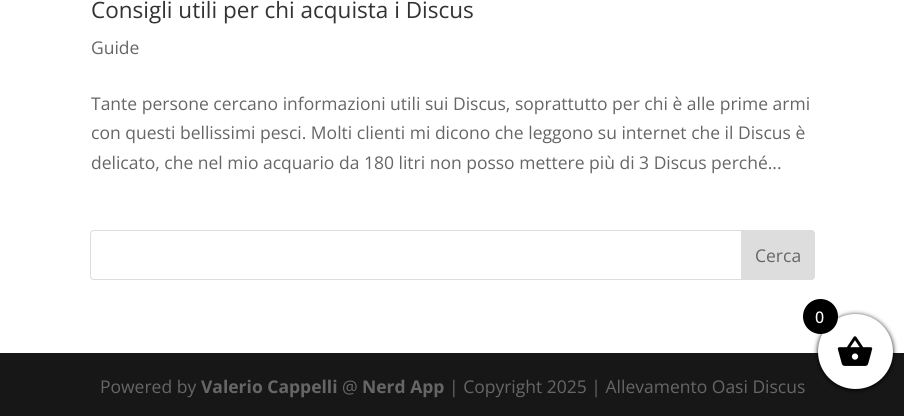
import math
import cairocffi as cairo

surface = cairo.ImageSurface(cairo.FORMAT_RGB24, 904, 416)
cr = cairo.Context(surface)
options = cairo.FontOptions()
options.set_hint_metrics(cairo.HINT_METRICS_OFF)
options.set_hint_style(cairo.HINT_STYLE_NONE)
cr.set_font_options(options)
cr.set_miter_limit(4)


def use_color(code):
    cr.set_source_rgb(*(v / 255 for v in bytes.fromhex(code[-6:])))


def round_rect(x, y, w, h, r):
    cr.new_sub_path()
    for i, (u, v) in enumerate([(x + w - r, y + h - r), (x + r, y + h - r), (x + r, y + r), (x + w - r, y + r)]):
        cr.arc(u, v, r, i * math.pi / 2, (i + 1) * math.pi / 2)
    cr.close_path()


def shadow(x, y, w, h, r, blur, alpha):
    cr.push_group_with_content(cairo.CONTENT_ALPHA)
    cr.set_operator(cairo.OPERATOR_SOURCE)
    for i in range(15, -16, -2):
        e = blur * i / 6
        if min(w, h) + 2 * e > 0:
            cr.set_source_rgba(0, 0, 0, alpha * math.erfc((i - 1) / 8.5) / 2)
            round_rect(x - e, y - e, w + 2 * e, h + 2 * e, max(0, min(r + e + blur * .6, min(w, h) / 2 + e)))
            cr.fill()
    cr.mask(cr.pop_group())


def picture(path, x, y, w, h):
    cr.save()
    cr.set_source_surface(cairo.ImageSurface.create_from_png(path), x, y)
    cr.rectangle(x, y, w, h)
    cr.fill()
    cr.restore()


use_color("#ffffff")
cr.paint()
cr.select_font_face("Open Sans")
cr.set_font_size(22.5)
use_color("#333333")
cr.move_to(91, 18)
cr.show_text("Consigli utili per chi acquista i Discus")
cr.set_font_size(17.5)
use_color("#666666")
cr.move_to(91, 54)
cr.show_text("Guide")
cr.move_to(91, 110)
cr.show_text("Tante persone cercano informazioni utili sui Discus, soprattutto per chi è alle prime armi")
cr.move_to(91, 139)
cr.show_text("con questi bellissimi pesci. Molti clienti mi dicono che leggono su internet che il Discus è")
cr.move_to(91, 169)
cr.show_text("delicato, che nel mio acquario da 180 litri non posso mettere più di 3 Discus perché...")
round_rect(90.5, 230.5, 724, 49, 3.5)
use_color("#dddddd")
cr.set_line_width(1)
cr.stroke()
cr.new_path()
cr.move_to(741.5, 230.5)
cr.line_to(811, 230.5)
cr.curve_to(813, 230.5, 814.5, 232, 814.5, 234)
cr.line_to(814.5, 276)
cr.curve_to(814.5, 278, 813, 279.5, 811, 279.5)
cr.line_to(741.5, 279.5)
cr.close_path()
cr.fill_preserve()
cr.stroke()
use_color("#666666")
cr.move_to(755, 262)
cr.show_text("Cerca")
use_color("#171717")
cr.rectangle(0, 353, 904, 63)
cr.fill()
use_color("#666666")
cr.move_to(100, 393)
cr.show_text("Powered by")
cr.select_font_face("Open Sans", cairo.FONT_SLANT_NORMAL, cairo.FONT_WEIGHT_BOLD)
cr.move_to(201, 393)
cr.show_text("Valerio Cappelli")
cr.select_font_face("Open Sans")
cr.move_to(342, 393)
cr.show_text("@")
cr.select_font_face("Open Sans", cairo.FONT_SLANT_NORMAL, cairo.FONT_WEIGHT_BOLD)
cr.move_to(362, 393)
cr.show_text("Nerd App")
cr.select_font_face("Open Sans")
cr.move_to(449, 393)
cr.show_text("| Copyright 2025 | Allevamento Oasi Discus")
use_color("#000000")
shadow(818, 315, 75, 75, 37.5, 2.5, 1)
use_color("#ffffff")
cr.arc(855.5, 351.5, 37.5, 0, 2 * math.pi)
cr.fill()
use_color("#000000")
cr.arc(820.5, 316.5, 17.5, 0, 2 * math.pi)
cr.fill()
cr.select_font_face("Open Sans Medium")
cr.set_font_size(16)
use_color("#ffffff")
cr.move_to(815, 323)
cr.show_text("0")
picture("img1.png", 837, 336, 36, 30)
surface.write_to_png("result.png")
